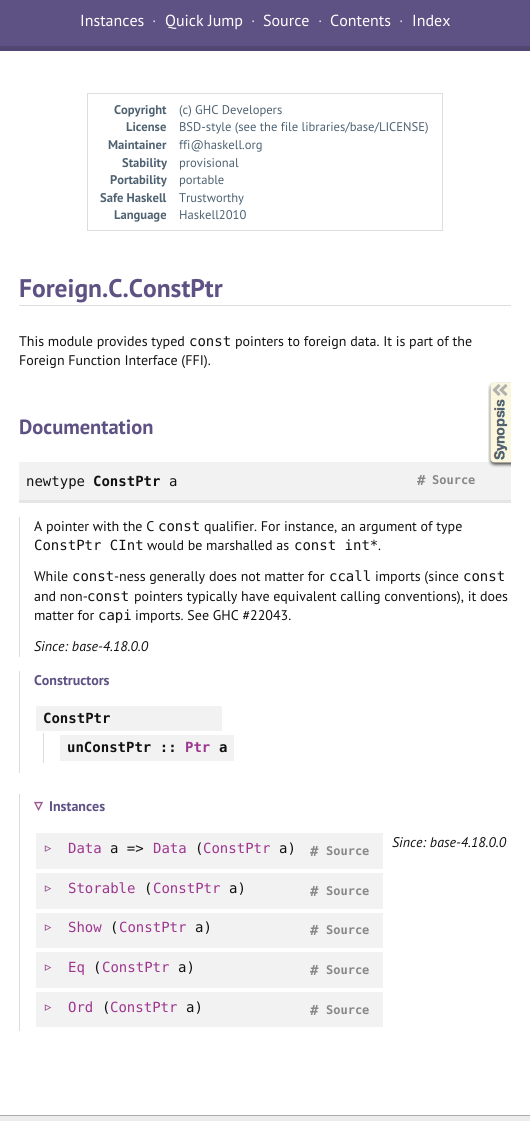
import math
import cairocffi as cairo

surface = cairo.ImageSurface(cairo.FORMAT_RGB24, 530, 1121)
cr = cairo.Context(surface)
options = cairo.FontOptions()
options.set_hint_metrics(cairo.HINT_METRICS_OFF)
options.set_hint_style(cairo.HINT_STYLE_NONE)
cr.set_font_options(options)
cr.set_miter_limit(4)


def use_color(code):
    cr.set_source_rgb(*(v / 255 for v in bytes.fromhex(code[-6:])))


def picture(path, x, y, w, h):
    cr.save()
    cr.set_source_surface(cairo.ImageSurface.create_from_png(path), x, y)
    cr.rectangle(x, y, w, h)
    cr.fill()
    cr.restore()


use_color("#ffffff")
cr.paint()
use_color("#5e5184")
cr.rectangle(0, 0, 530, 46)
cr.fill()
use_color("#524673")
cr.rectangle(0, 46, 530, 5)
cr.fill()
cr.select_font_face("PT Sans")
cr.set_font_size(16)
use_color("#ffffff")
cr.move_to(80, 26)
cr.show_text("Instances")
use_color("#dddddd")
cr.move_to(152, 26)
cr.show_text("·")
use_color("#ffffff")
cr.move_to(165, 26)
cr.show_text("Quick Jump")
use_color("#dddddd")
cr.move_to(251, 26)
cr.show_text("·")
use_color("#ffffff")
cr.move_to(263, 26)
cr.show_text("Source")
use_color("#dddddd")
cr.move_to(318, 26)
cr.show_text("·")
use_color("#ffffff")
cr.move_to(330, 26)
cr.show_text("Contents")
use_color("#dddddd")
cr.move_to(399, 26)
cr.show_text("·")
use_color("#ffffff")
cr.move_to(412, 26)
cr.show_text("Index")
cr.rectangle(87.5, 93.5, 355, 137)
use_color("#dddddd")
cr.set_line_width(1)
cr.stroke()
cr.select_font_face("PT Sans", cairo.FONT_SLANT_NORMAL, cairo.FONT_WEIGHT_BOLD)
cr.set_font_size(12.6)
use_color("#4e6272")
cr.move_to(114, 114)
cr.show_text("Copyright")
cr.select_font_face("PT Sans")
cr.move_to(179, 114)
cr.show_text("(c) GHC Developers")
cr.select_font_face("PT Sans", cairo.FONT_SLANT_NORMAL, cairo.FONT_WEIGHT_BOLD)
cr.move_to(126, 131)
cr.show_text("License")
cr.select_font_face("PT Sans")
cr.move_to(179, 131)
cr.show_text("BSD-style (see the file libraries/base/LICENSE)")
cr.select_font_face("PT Sans", cairo.FONT_SLANT_NORMAL, cairo.FONT_WEIGHT_BOLD)
cr.move_to(108, 149)
cr.show_text("Maintainer")
cr.select_font_face("PT Sans")
cr.move_to(179, 149)
cr.show_text("ffi@haskell.org")
cr.select_font_face("PT Sans", cairo.FONT_SLANT_NORMAL, cairo.FONT_WEIGHT_BOLD)
cr.move_to(122, 167)
cr.show_text("Stability")
cr.select_font_face("PT Sans")
cr.move_to(179, 167)
cr.show_text("provisional")
cr.select_font_face("PT Sans", cairo.FONT_SLANT_NORMAL, cairo.FONT_WEIGHT_BOLD)
cr.move_to(110, 184)
cr.show_text("Portability")
cr.select_font_face("PT Sans")
cr.move_to(179, 184)
cr.show_text("portable")
cr.select_font_face("PT Sans", cairo.FONT_SLANT_NORMAL, cairo.FONT_WEIGHT_BOLD)
cr.move_to(100, 202)
cr.show_text("Safe Haskell")
cr.select_font_face("PT Sans")
cr.move_to(179, 202)
cr.show_text("Trustworthy")
cr.select_font_face("PT Sans", cairo.FONT_SLANT_NORMAL, cairo.FONT_WEIGHT_BOLD)
cr.move_to(114, 219)
cr.show_text("Language")
cr.select_font_face("PT Sans")
cr.move_to(179, 219)
cr.show_text("Haskell2010")
use_color("#dddddd")
cr.rectangle(19, 305, 492, 1)
cr.fill()
cr.select_font_face("PT Sans", cairo.FONT_SLANT_NORMAL, cairo.FONT_WEIGHT_BOLD)
cr.set_font_size(25.5)
use_color("#5e5184")
cr.move_to(19, 297)
cr.show_text("Foreign.C.ConstPtr")
cr.select_font_face("PT Sans")
cr.set_font_size(14)
use_color("#111111")
cr.move_to(19, 346)
cr.show_text("This module provides typed")
cr.select_font_face("DejaVu Sans Mono")
cr.move_to(189, 346)
cr.show_text("const")
cr.select_font_face("PT Sans")
cr.move_to(235, 346)
cr.show_text("pointers to foreign data. It is part of the")
cr.move_to(19, 365)
cr.show_text("Foreign Function Interface (FFI).")
use_color("#f2f2f2")
cr.rectangle(19, 462, 492, 38)
cr.fill()
picture("img1.png", 488, 382, 23, 86)
cr.select_font_face("PT Sans", cairo.FONT_SLANT_NORMAL, cairo.FONT_WEIGHT_BOLD)
cr.set_font_size(20.5)
use_color("#5e5184")
cr.move_to(19, 434)
cr.show_text("Documentation")
use_color("#e5e5e5")
cr.rectangle(19, 500, 492, 3)
cr.fill()
cr.select_font_face("DejaVu Sans Mono")
cr.set_font_size(14)
use_color("#111111")
cr.move_to(26, 486)
cr.show_text("newtype")
cr.select_font_face("DejaVu Sans Mono", cairo.FONT_SLANT_NORMAL, cairo.FONT_WEIGHT_BOLD)
cr.move_to(93, 486)
cr.show_text("ConstPtr")
cr.select_font_face("DejaVu Sans Mono")
cr.move_to(169, 486)
cr.show_text("a")
cr.select_font_face("DejaVu Sans Mono", cairo.FONT_SLANT_NORMAL, cairo.FONT_WEIGHT_BOLD)
use_color("#888888")
cr.move_to(417, 485)
cr.show_text("#")
cr.set_font_size(12)
cr.move_to(432, 484)
cr.show_text("Source")
use_color("#dcdcdc")
cr.rectangle(19, 517, 1, 140)
cr.fill()
cr.select_font_face("PT Sans")
cr.set_font_size(14)
use_color("#111111")
cr.move_to(34, 531)
cr.show_text("A pointer with the C")
cr.select_font_face("DejaVu Sans Mono")
cr.move_to(158, 531)
cr.show_text("const")
cr.select_font_face("PT Sans")
cr.move_to(204, 531)
cr.show_text("qualifier. For instance, an argument of type")
cr.select_font_face("DejaVu Sans Mono")
cr.move_to(34, 550)
cr.show_text("ConstPtr CInt")
cr.select_font_face("PT Sans")
cr.move_to(147, 550)
cr.show_text("would be marshalled as")
cr.select_font_face("DejaVu Sans Mono")
cr.move_to(294, 550)
cr.show_text("const int*")
cr.select_font_face("PT Sans")
cr.move_to(378, 550)
cr.show_text(".")
cr.move_to(34, 581)
cr.show_text("While")
cr.select_font_face("DejaVu Sans Mono")
cr.move_to(72, 581)
cr.show_text("const")
cr.select_font_face("PT Sans")
cr.move_to(114, 581)
cr.show_text("-ness generally does not matter for")
cr.select_font_face("DejaVu Sans Mono")
cr.move_to(329, 581)
cr.show_text("ccall")
cr.select_font_face("PT Sans")
cr.move_to(375, 581)
cr.show_text("imports (since")
cr.select_font_face("DejaVu Sans Mono")
cr.move_to(463, 581)
cr.show_text("const")
cr.select_font_face("PT Sans")
cr.move_to(34, 601)
cr.show_text("and non-")
cr.select_font_face("DejaVu Sans Mono")
cr.move_to(87, 601)
cr.show_text("const")
cr.select_font_face("PT Sans")
cr.move_to(134, 601)
cr.show_text("pointers typically have equivalent calling conventions), it does")
cr.move_to(34, 620)
cr.show_text("matter for")
cr.select_font_face("DejaVu Sans Mono")
cr.move_to(98, 620)
cr.show_text("capi")
cr.select_font_face("PT Sans")
cr.move_to(135, 620)
cr.show_text("imports. See GHC #22043.")
cr.select_font_face("PT Sans", cairo.FONT_SLANT_ITALIC)
cr.move_to(34, 651)
cr.show_text("Since: base-4.18.0.0")
use_color("#dcdcdc")
cr.rectangle(19, 671, 1, 102)
cr.fill()
cr.select_font_face("PT Sans", cairo.FONT_SLANT_NORMAL, cairo.FONT_WEIGHT_BOLD)
use_color("#5e5184")
cr.move_to(34, 685)
cr.show_text("Constructors")
use_color("#f2f2f2")
cr.rectangle(36, 706, 186, 25)
cr.fill()
cr.select_font_face("DejaVu Sans Mono", cairo.FONT_SLANT_NORMAL, cairo.FONT_WEIGHT_BOLD)
use_color("#111111")
cr.move_to(43, 723)
cr.show_text("ConstPtr")
use_color("#dcdcdc")
cr.rectangle(43, 733, 1, 30)
cr.fill()
use_color("#f2f2f2")
cr.rectangle(60, 735, 174, 26)
cr.fill()
use_color("#111111")
cr.move_to(67, 752)
cr.show_text("unConstPtr ::")
use_color("#9e358f")
cr.move_to(185, 752)
cr.show_text("Ptr")
use_color("#111111")
cr.move_to(219, 752)
cr.show_text("a")
use_color("#dcdcdc")
cr.rectangle(19, 794, 1, 237)
cr.fill()
cr.select_font_face("DejaVu Sans", cairo.FONT_SLANT_NORMAL, cairo.FONT_WEIGHT_BOLD)
cr.set_font_size(17)
use_color("#9c5791")
cr.move_to(34, 811)
cr.show_text("▿")
cr.select_font_face("PT Sans", cairo.FONT_SLANT_NORMAL, cairo.FONT_WEIGHT_BOLD)
cr.set_font_size(14)
use_color("#5e5184")
cr.move_to(49, 811)
cr.show_text("Instances")
use_color("#f2f2f2")
cr.rectangle(36, 833, 347, 36)
cr.fill()
cr.select_font_face("DejaVu Sans Mono")
cr.set_font_size(17)
use_color("#9c5791")
cr.move_to(43, 853)
cr.show_text("▹")
cr.set_font_size(14)
use_color("#9e358f")
cr.move_to(68, 853)
cr.show_text("Data")
use_color("#111111")
cr.move_to(110, 853)
cr.show_text("a =>")
use_color("#9e358f")
cr.move_to(153, 853)
cr.show_text("Data")
use_color("#111111")
cr.move_to(195, 853)
cr.show_text("(")
use_color("#9e358f")
cr.move_to(203, 853)
cr.show_text("ConstPtr")
use_color("#111111")
cr.move_to(279, 853)
cr.show_text("a)")
cr.select_font_face("DejaVu Sans Mono", cairo.FONT_SLANT_NORMAL, cairo.FONT_WEIGHT_BOLD)
use_color("#888888")
cr.move_to(310, 856)
cr.show_text("#")
cr.set_font_size(12)
cr.move_to(326, 855)
cr.show_text("Source")
cr.select_font_face("PT Sans", cairo.FONT_SLANT_ITALIC)
cr.set_font_size(14)
use_color("#111111")
cr.move_to(392, 847)
cr.show_text("Since: base-4.18.0.0")
use_color("#f2f2f2")
cr.rectangle(36, 873, 347, 36)
cr.fill()
cr.select_font_face("DejaVu Sans Mono")
cr.set_font_size(17)
use_color("#9c5791")
cr.move_to(43, 893)
cr.show_text("▹")
cr.set_font_size(14)
use_color("#9e358f")
cr.move_to(68, 893)
cr.show_text("Storable")
use_color("#111111")
cr.move_to(144, 893)
cr.show_text("(")
use_color("#9e358f")
cr.move_to(153, 893)
cr.show_text("ConstPtr")
use_color("#111111")
cr.move_to(229, 893)
cr.show_text("a)")
cr.select_font_face("DejaVu Sans Mono", cairo.FONT_SLANT_NORMAL, cairo.FONT_WEIGHT_BOLD)
use_color("#888888")
cr.move_to(310, 896)
cr.show_text("#")
cr.set_font_size(12)
cr.move_to(326, 895)
cr.show_text("Source")
use_color("#f2f2f2")
cr.rectangle(36, 913, 347, 35)
cr.fill()
cr.select_font_face("DejaVu Sans Mono")
cr.set_font_size(17)
use_color("#9c5791")
cr.move_to(43, 932)
cr.show_text("▹")
cr.set_font_size(14)
use_color("#9e358f")
cr.move_to(68, 932)
cr.show_text("Show")
use_color("#111111")
cr.move_to(110, 932)
cr.show_text("(")
use_color("#9e358f")
cr.move_to(119, 932)
cr.show_text("ConstPtr")
use_color("#111111")
cr.move_to(195, 932)
cr.show_text("a)")
cr.select_font_face("DejaVu Sans Mono", cairo.FONT_SLANT_NORMAL, cairo.FONT_WEIGHT_BOLD)
use_color("#888888")
cr.move_to(310, 935)
cr.show_text("#")
cr.set_font_size(12)
cr.move_to(326, 934)
cr.show_text("Source")
use_color("#f2f2f2")
cr.rectangle(36, 952, 347, 36)
cr.fill()
cr.select_font_face("DejaVu Sans Mono")
cr.set_font_size(17)
use_color("#9c5791")
cr.move_to(43, 972)
cr.show_text("▹")
cr.set_font_size(14)
use_color("#9e358f")
cr.move_to(68, 972)
cr.show_text("Eq")
use_color("#111111")
cr.move_to(93, 972)
cr.show_text("(")
use_color("#9e358f")
cr.move_to(102, 972)
cr.show_text("ConstPtr")
use_color("#111111")
cr.move_to(178, 972)
cr.show_text("a)")
cr.select_font_face("DejaVu Sans Mono", cairo.FONT_SLANT_NORMAL, cairo.FONT_WEIGHT_BOLD)
use_color("#888888")
cr.move_to(310, 975)
cr.show_text("#")
cr.set_font_size(12)
cr.move_to(326, 974)
cr.show_text("Source")
use_color("#f2f2f2")
cr.rectangle(36, 992, 347, 35)
cr.fill()
cr.select_font_face("DejaVu Sans Mono")
cr.set_font_size(17)
use_color("#9c5791")
cr.move_to(43, 1012)
cr.show_text("▹")
cr.set_font_size(14)
use_color("#9e358f")
cr.move_to(68, 1012)
cr.show_text("Ord")
use_color("#111111")
cr.move_to(102, 1012)
cr.show_text("(")
use_color("#9e358f")
cr.move_to(110, 1012)
cr.show_text("ConstPtr")
use_color("#111111")
cr.move_to(186, 1012)
cr.show_text("a)")
cr.select_font_face("DejaVu Sans Mono", cairo.FONT_SLANT_NORMAL, cairo.FONT_WEIGHT_BOLD)
use_color("#888888")
cr.move_to(310, 1015)
cr.show_text("#")
cr.set_font_size(12)
cr.move_to(326, 1014)
cr.show_text("Source")
use_color("#ededed")
cr.rectangle(0, 1116, 530, 5)
cr.fill()
use_color("#aaaaaa")
cr.rectangle(0, 1115, 530, 1)
cr.fill()
surface.write_to_png("result.png")
